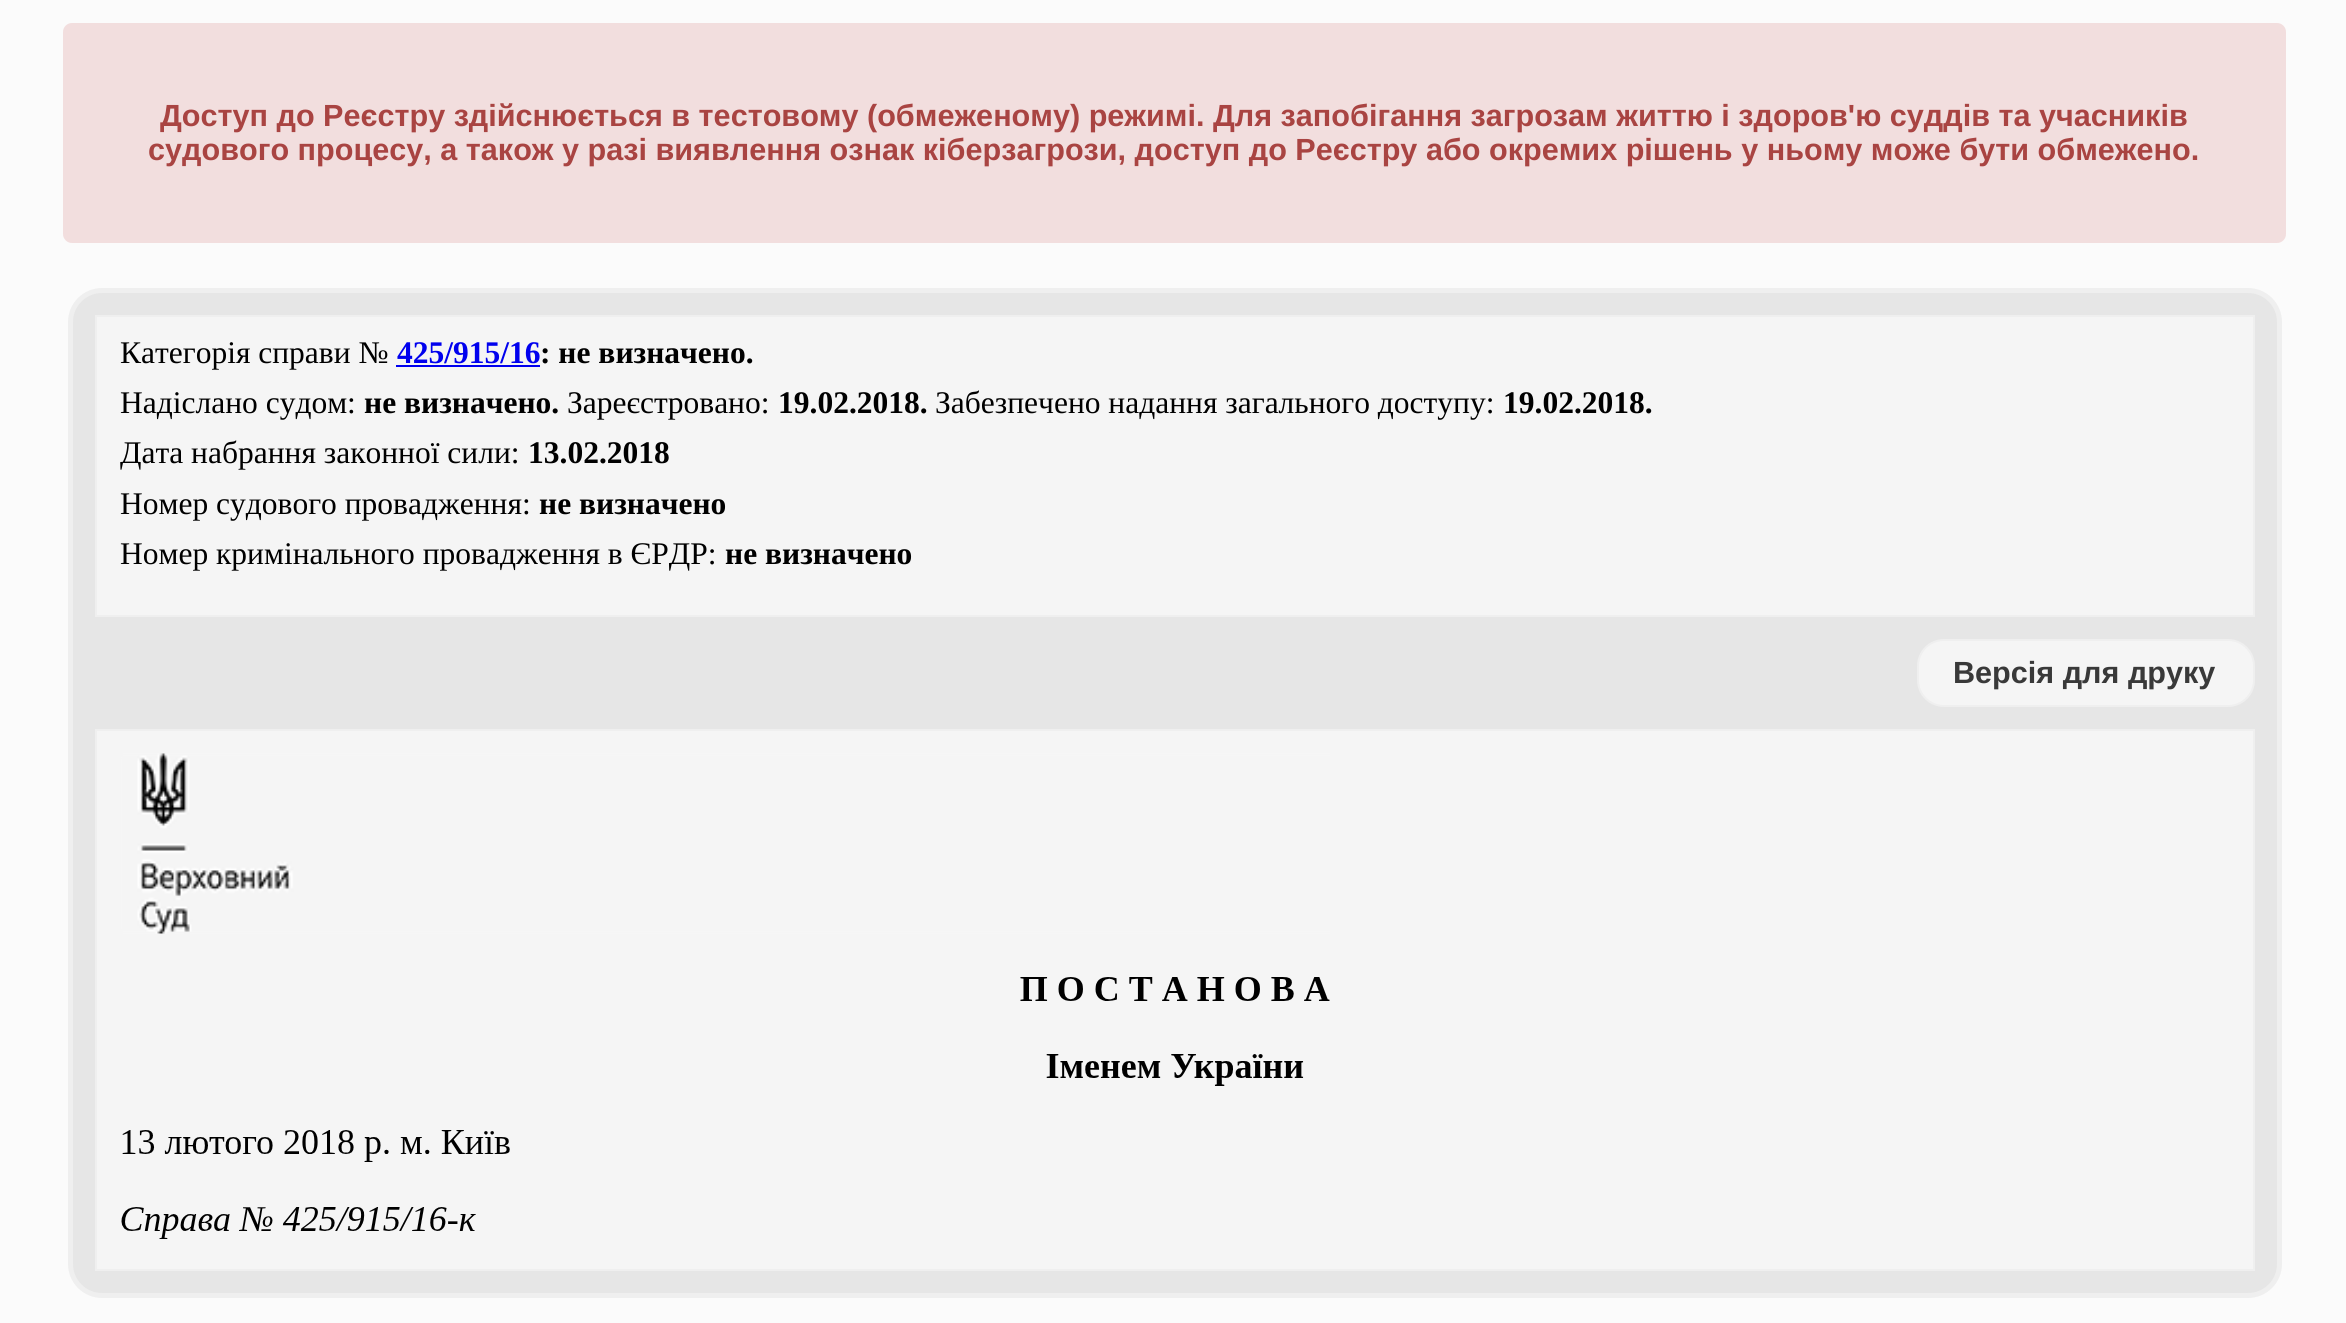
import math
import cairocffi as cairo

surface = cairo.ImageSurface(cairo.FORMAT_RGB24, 2346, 1323)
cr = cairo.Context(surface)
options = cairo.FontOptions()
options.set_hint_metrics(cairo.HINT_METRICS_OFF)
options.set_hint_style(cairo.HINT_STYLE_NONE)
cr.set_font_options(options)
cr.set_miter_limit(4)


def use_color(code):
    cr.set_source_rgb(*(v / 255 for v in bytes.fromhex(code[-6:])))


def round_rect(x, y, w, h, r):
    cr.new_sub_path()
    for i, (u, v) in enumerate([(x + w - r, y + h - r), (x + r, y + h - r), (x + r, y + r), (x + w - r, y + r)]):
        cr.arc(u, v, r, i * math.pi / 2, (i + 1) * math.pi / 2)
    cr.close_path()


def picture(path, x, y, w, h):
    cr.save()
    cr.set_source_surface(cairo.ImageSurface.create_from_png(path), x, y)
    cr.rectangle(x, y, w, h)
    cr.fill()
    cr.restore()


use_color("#fbfbfb")
cr.paint()
use_color("#f2dede")
round_rect(63, 23, 2223, 220, 9)
cr.fill()
cr.select_font_face("Liberation Sans", cairo.FONT_SLANT_NORMAL, cairo.FONT_WEIGHT_BOLD)
cr.set_font_size(30.6)
use_color("#a94442")
cr.move_to(160, 126)
cr.show_text("Доступ до Реєстру здійснюється в тестовому (обмеженому) режимі. Для запобігання загрозам життю і здоров'ю суддів та учасників")
cr.move_to(148, 160)
cr.show_text("судового процесу, а також у разі виявлення ознак кіберзагрози, доступ до Реєстру або окремих рішень у ньому може бути обмежено.")
use_color("#e6e6e6")
round_rect(70.5, 290.5, 2209, 1005, 31.5)
cr.fill_preserve()
use_color("#efefef")
cr.set_line_width(5)
cr.stroke()
use_color("#f5f5f5")
cr.rectangle(96, 316, 2158, 300)
cr.fill_preserve()
use_color("#efefef")
cr.set_line_width(2)
cr.stroke()
cr.select_font_face("Liberation Serif")
cr.set_font_size(31.5)
use_color("#000000")
cr.move_to(120, 363)
cr.show_text("Категорія справи №")
cr.select_font_face("Liberation Serif", cairo.FONT_SLANT_NORMAL, cairo.FONT_WEIGHT_BOLD)
use_color("#0000ee")
cr.move_to(397, 363)
cr.show_text("425/915/16")
use_color("#000000")
cr.move_to(540, 363)
cr.show_text(": не визначено.")
use_color("#0000ee")
cr.rectangle(396, 365, 144, 2)
cr.fill()
cr.select_font_face("Liberation Serif")
use_color("#000000")
cr.move_to(120, 413)
cr.show_text("Надіслано судом:")
cr.select_font_face("Liberation Serif", cairo.FONT_SLANT_NORMAL, cairo.FONT_WEIGHT_BOLD)
cr.move_to(364, 413)
cr.show_text("не визначено.")
cr.select_font_face("Liberation Serif")
cr.move_to(567, 413)
cr.show_text("Зареєстровано:")
cr.select_font_face("Liberation Serif", cairo.FONT_SLANT_NORMAL, cairo.FONT_WEIGHT_BOLD)
cr.move_to(778, 413)
cr.show_text("19.02.2018.")
cr.select_font_face("Liberation Serif")
cr.move_to(935, 413)
cr.show_text("Забезпечено надання загального доступу:")
cr.select_font_face("Liberation Serif", cairo.FONT_SLANT_NORMAL, cairo.FONT_WEIGHT_BOLD)
cr.move_to(1503, 413)
cr.show_text("19.02.2018.")
cr.select_font_face("Liberation Serif")
cr.move_to(120, 463)
cr.show_text("Дата набрання законної сили:")
cr.select_font_face("Liberation Serif", cairo.FONT_SLANT_NORMAL, cairo.FONT_WEIGHT_BOLD)
cr.move_to(528, 463)
cr.show_text("13.02.2018")
cr.select_font_face("Liberation Serif")
cr.move_to(120, 514)
cr.show_text("Номер судового провадження:")
cr.select_font_face("Liberation Serif", cairo.FONT_SLANT_NORMAL, cairo.FONT_WEIGHT_BOLD)
cr.move_to(539, 514)
cr.show_text("не визначено")
cr.select_font_face("Liberation Serif")
cr.move_to(120, 564)
cr.show_text("Номер кримінального провадження в ЄРДР:")
cr.select_font_face("Liberation Serif", cairo.FONT_SLANT_NORMAL, cairo.FONT_WEIGHT_BOLD)
cr.move_to(725, 564)
cr.show_text("не визначено")
use_color("#f5f5f5")
round_rect(1918, 640, 336, 66, 26)
cr.fill_preserve()
use_color("#efefef")
cr.stroke()
cr.select_font_face("Liberation Sans", cairo.FONT_SLANT_NORMAL, cairo.FONT_WEIGHT_BOLD)
cr.set_font_size(30.6)
use_color("#393939")
cr.move_to(1953, 683)
cr.show_text("Версія для друку")
use_color("#f5f5f5")
cr.rectangle(96, 730, 2158, 540)
cr.fill_preserve()
use_color("#efefef")
cr.stroke()
picture("img1.png", 121, 753, 1209, 486)
surface.write_to_png("result.png")
